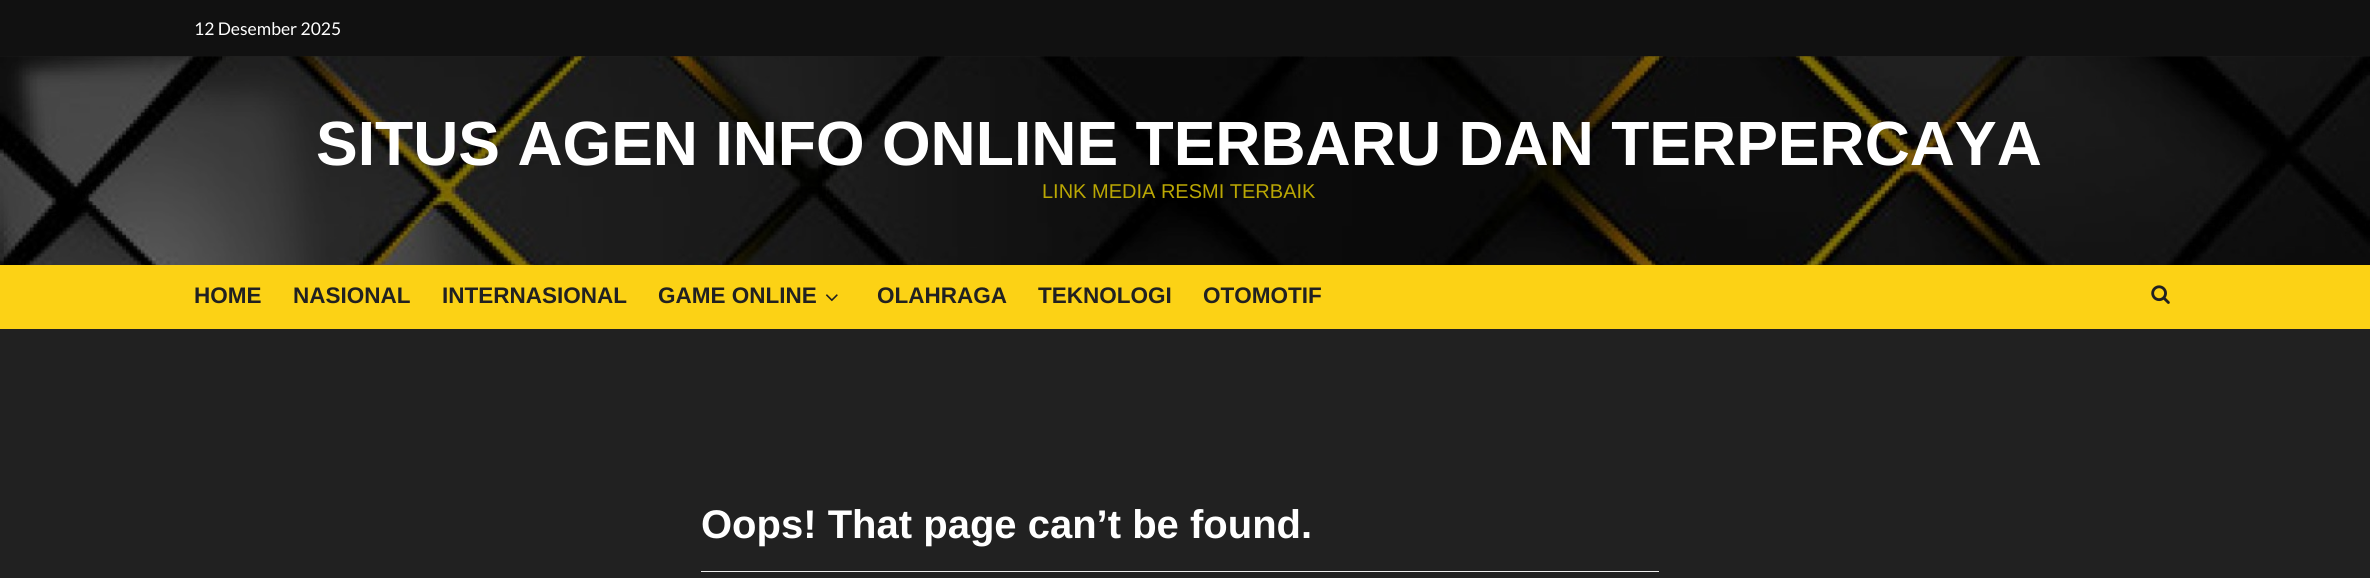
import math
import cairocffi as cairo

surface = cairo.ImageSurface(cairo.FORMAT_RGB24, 2370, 578)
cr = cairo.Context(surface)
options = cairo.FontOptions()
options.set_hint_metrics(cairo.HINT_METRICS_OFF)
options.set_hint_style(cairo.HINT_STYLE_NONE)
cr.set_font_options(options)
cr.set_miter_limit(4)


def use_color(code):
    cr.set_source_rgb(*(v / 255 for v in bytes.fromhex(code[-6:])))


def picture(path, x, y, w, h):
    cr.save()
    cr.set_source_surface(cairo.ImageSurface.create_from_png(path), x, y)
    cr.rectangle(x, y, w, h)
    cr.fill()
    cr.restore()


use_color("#212121")
cr.paint()
use_color("#111111")
cr.rectangle(0, 0, 2370, 56)
cr.fill()
cr.select_font_face("Lato")
cr.set_font_size(17.5)
use_color("#ffffff")
cr.move_to(194, 35)
cr.show_text("12 Desember 2025")
picture("img1.png", 0, 56, 2370, 209)
cr.select_font_face("Liberation Sans", cairo.FONT_SLANT_NORMAL, cairo.FONT_WEIGHT_BOLD)
cr.set_font_size(62.5)
cr.move_to(316, 165)
cr.show_text("SITUS AGEN INFO ONLINE TERBARU DAN TERPERCAYA")
cr.select_font_face("Liberation Sans")
cr.set_font_size(20)
use_color("#baa703")
cr.move_to(1042, 198)
cr.show_text("LINK MEDIA RESMI TERBAIK")
use_color("#fcd215")
cr.rectangle(0, 265, 2370, 64)
cr.fill()
cr.select_font_face("Liberation Sans", cairo.FONT_SLANT_NORMAL, cairo.FONT_WEIGHT_BOLD)
cr.set_font_size(22.5)
use_color("#212121")
cr.move_to(194, 303)
cr.show_text("HOME")
cr.move_to(293, 303)
cr.show_text("NASIONAL")
cr.move_to(442, 303)
cr.show_text("INTERNASIONAL")
cr.move_to(658, 303)
cr.show_text("GAME ONLINE")
picture("img2.png", 825, 294, 13, 8)
cr.move_to(877, 303)
cr.show_text("OLAHRAGA")
cr.move_to(1038, 303)
cr.show_text("TEKNOLOGI")
cr.move_to(1203, 303)
cr.show_text("OTOMOTIF")
picture("img3.png", 2151, 285, 19, 19)
use_color("#eeeeee")
cr.rectangle(701, 571, 958, 1)
cr.fill()
cr.set_font_size(40)
use_color("#ffffff")
cr.move_to(701, 538)
cr.show_text("Oops! That page can’t be found.")
surface.write_to_png("result.png")
